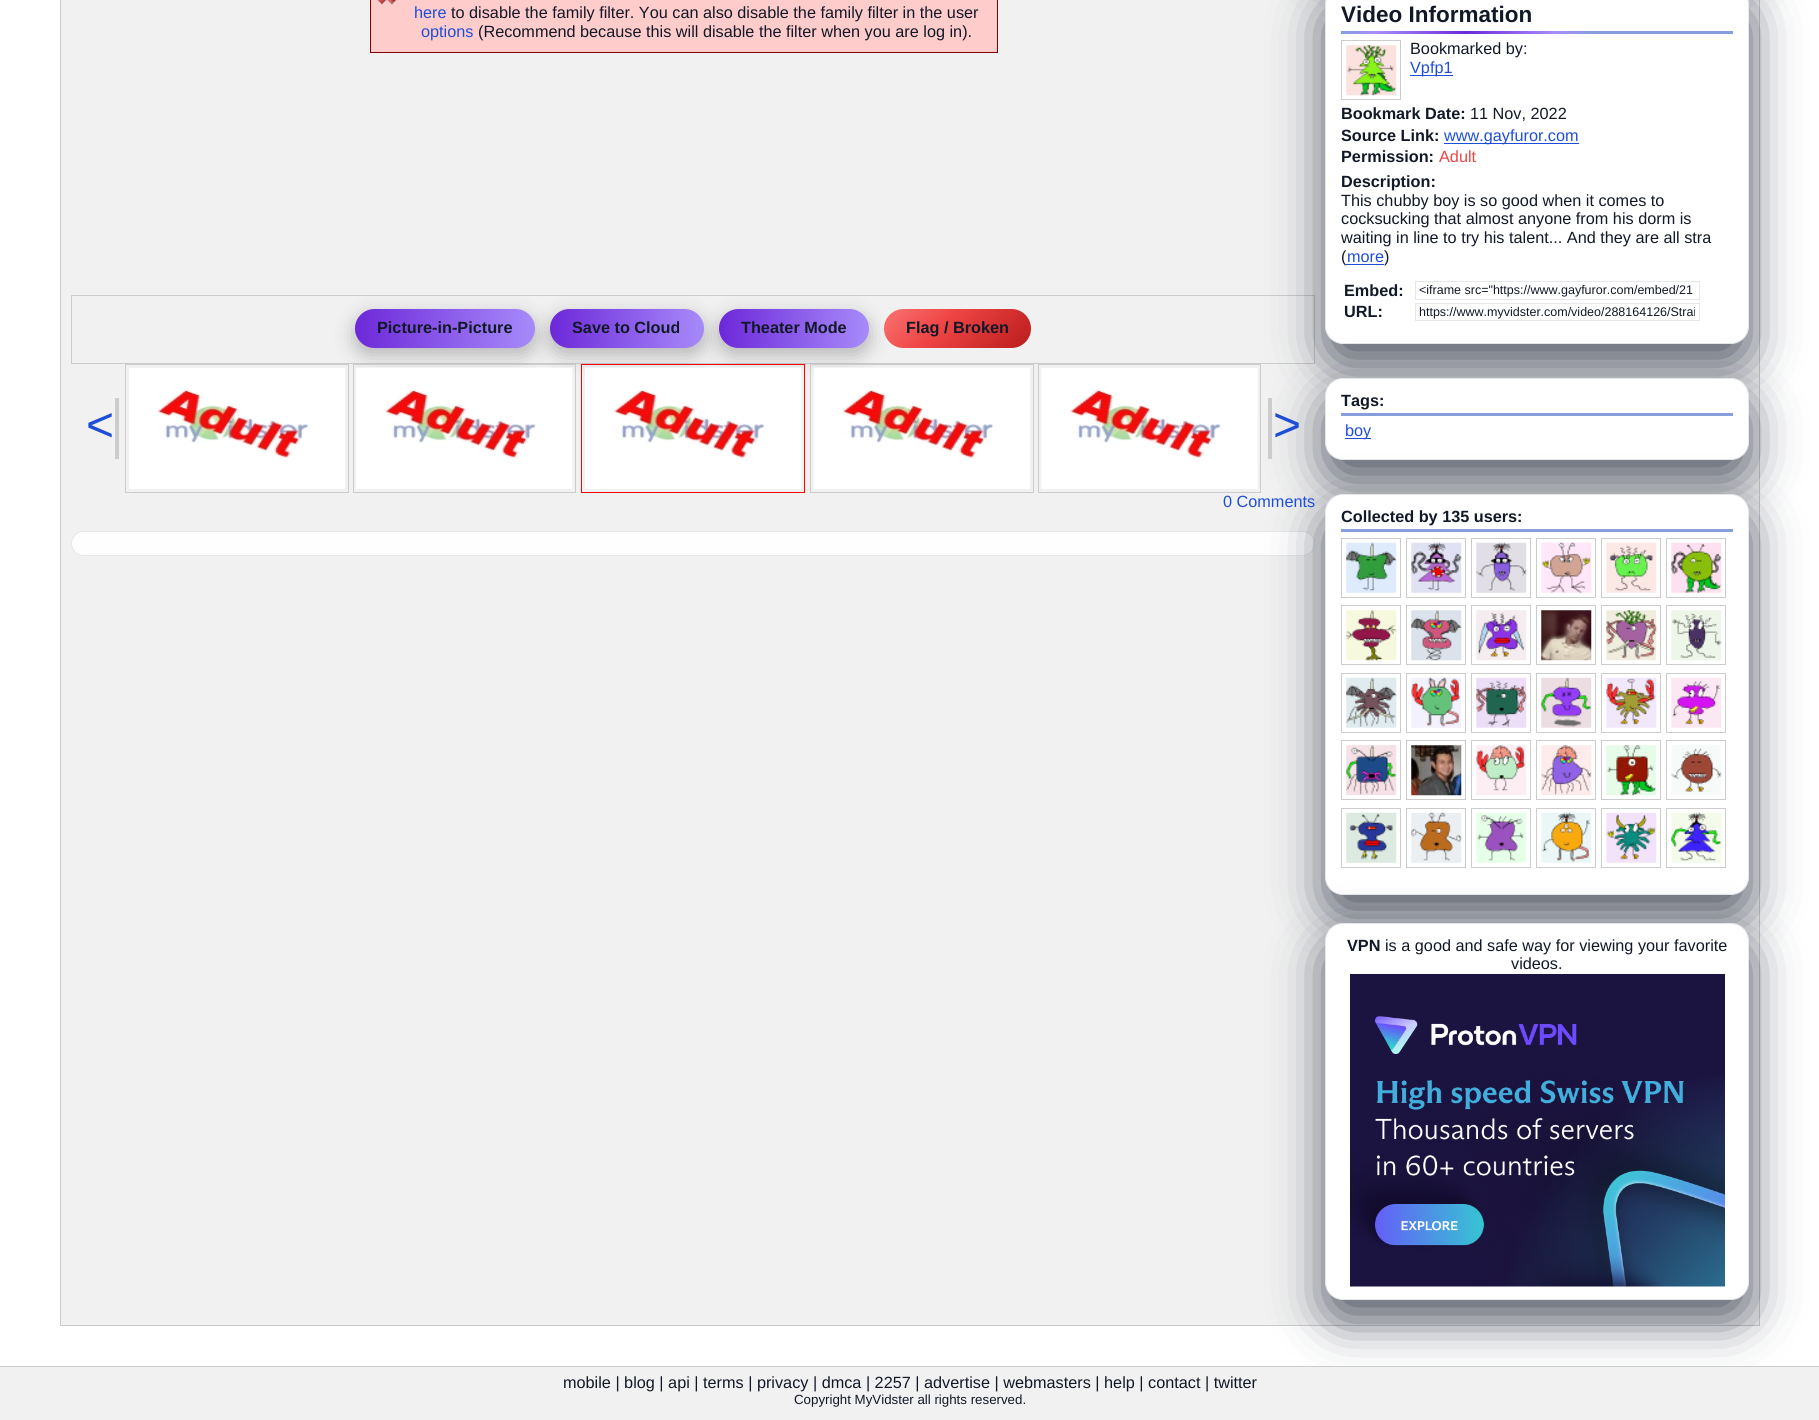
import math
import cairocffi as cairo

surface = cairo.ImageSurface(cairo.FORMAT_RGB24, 1819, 1420)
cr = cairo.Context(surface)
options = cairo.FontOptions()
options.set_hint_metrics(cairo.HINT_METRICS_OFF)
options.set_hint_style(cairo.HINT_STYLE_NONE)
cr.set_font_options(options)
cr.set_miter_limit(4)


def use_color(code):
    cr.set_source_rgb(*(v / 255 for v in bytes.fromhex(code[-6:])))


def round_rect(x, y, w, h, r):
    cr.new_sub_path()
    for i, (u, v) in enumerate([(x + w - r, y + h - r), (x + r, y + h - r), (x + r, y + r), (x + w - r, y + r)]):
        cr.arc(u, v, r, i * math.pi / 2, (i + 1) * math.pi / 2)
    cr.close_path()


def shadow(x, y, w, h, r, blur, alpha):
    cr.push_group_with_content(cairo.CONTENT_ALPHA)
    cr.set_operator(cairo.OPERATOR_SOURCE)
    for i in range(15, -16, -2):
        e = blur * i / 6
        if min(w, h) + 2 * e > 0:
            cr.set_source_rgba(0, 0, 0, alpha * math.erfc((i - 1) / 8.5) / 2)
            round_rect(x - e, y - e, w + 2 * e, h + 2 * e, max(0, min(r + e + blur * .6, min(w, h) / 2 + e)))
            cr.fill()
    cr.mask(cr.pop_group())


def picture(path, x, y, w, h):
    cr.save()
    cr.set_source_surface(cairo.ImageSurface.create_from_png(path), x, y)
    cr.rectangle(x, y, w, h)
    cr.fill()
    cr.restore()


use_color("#ffffff")
cr.paint()
use_color("#f1f1f1")
cr.rectangle(60.5, -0.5, 1699, 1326)
cr.fill_preserve()
use_color("#cccccc")
cr.set_line_width(1)
cr.stroke()
use_color("#ffcccc")
cr.rectangle(371, 0, 626, 52)
cr.fill()
picture("img1.png", 377, 0, 20, 5)
cr.rectangle(370.5, -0.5, 627, 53)
use_color("#800000")
cr.stroke()
cr.select_font_face("Liberation Sans")
cr.set_font_size(16.25)
use_color("#1d4ed8")
cr.move_to(414, 18)
cr.show_text("here")
use_color("#111827")
cr.move_to(451, 18)
cr.show_text("to disable the family filter. You can also disable the family filter in the user")
use_color("#1d4ed8")
cr.move_to(421, 37)
cr.show_text("options")
use_color("#111827")
cr.move_to(478, 37)
cr.show_text("(Recommend because this will disable the filter when you are log in).")
cr.rectangle(71.5, 295.5, 1243, 68)
use_color("#cccccc")
cr.stroke()
use_color("#000000")
shadow(355, 316, 180, 39, 19.5, 10, 0.25)
gradient = cairo.LinearGradient(355, 328, 535, 328)
gradient.add_color_stop_rgba(0, 0.427, 0.157, 0.851, 1)
gradient.add_color_stop_rgba(1, 0.655, 0.545, 0.98, 1)
cr.set_source(gradient)
round_rect(355, 309, 180, 39, 19.5)
cr.fill()
cr.select_font_face("Liberation Sans", cairo.FONT_SLANT_NORMAL, cairo.FONT_WEIGHT_BOLD)
use_color("#111827")
cr.move_to(377, 333)
cr.show_text("Picture-in-Picture")
use_color("#000000")
shadow(550, 316, 154, 39, 19.5, 10, 0.25)
gradient = cairo.LinearGradient(550, 328, 704, 328)
gradient.add_color_stop_rgba(0, 0.427, 0.157, 0.851, 1)
gradient.add_color_stop_rgba(1, 0.655, 0.545, 0.98, 1)
cr.set_source(gradient)
round_rect(550, 309, 154, 39, 19.5)
cr.fill()
use_color("#111827")
cr.move_to(572, 333)
cr.show_text("Save to Cloud")
use_color("#000000")
shadow(719, 316, 150, 39, 19.5, 10, 0.25)
gradient = cairo.LinearGradient(719, 328, 869, 328)
gradient.add_color_stop_rgba(0, 0.427, 0.157, 0.851, 1)
gradient.add_color_stop_rgba(1, 0.655, 0.545, 0.98, 1)
cr.set_source(gradient)
round_rect(719, 309, 150, 39, 19.5)
cr.fill()
use_color("#111827")
cr.move_to(741, 333)
cr.show_text("Theater Mode")
gradient = cairo.LinearGradient(911, 282, 1004, 375)
gradient.add_color_stop_rgba(0, 0.976, 0.451, 0.451, 1)
gradient.add_color_stop_rgba(0.4, 0.937, 0.267, 0.267, 1)
gradient.add_color_stop_rgba(1, 0.725, 0.11, 0.11, 1)
cr.set_source(gradient)
round_rect(884, 309, 147, 39, 19.5)
cr.fill()
use_color("#111827")
cr.move_to(906, 333)
cr.show_text("Flag / Broken")
use_color("#cccccc")
cr.rectangle(115, 398, 4, 61)
cr.fill()
cr.select_font_face("Liberation Sans")
cr.set_font_size(48)
use_color("#1d4ed8")
cr.move_to(86, 441)
cr.show_text("<")
cr.rectangle(125.5, 364.5, 223, 128)
use_color("#cccccc")
cr.stroke()
picture("img2.png", 129, 368, 216, 121)
cr.rectangle(353.5, 364.5, 222, 128)
cr.stroke()
picture("img3.png", 356, 367, 217, 122)
cr.rectangle(581.5, 364.5, 223, 128)
use_color("#ff0000")
cr.stroke()
picture("img4.png", 585, 367, 217, 122)
cr.rectangle(810.5, 364.5, 223, 128)
use_color("#cccccc")
cr.stroke()
picture("img5.png", 813, 367, 217, 122)
use_color("#0f172a")
shadow(1325, 6, 424, 358, 18, 25, 0.7)
use_color("#fefefe")
round_rect(71.5, 531.5, 1243, 24, 12)
cr.fill_preserve()
use_color("#e5e7eb")
cr.stroke()
use_color("#0f172a")
shadow(1325, -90, 424, 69, 18, 25, 0.7)
use_color("#ffffff")
round_rect(1325.5, -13.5, 423, 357, 17.5)
cr.fill_preserve()
use_color("#e5e7eb")
cr.stroke()
use_color("#0f172a")
shadow(1325, 398, 424, 82, 18, 25, 0.7)
use_color("#ffffff")
round_rect(1325.5, 378.5, 423, 81, 17.5)
cr.fill_preserve()
use_color("#e5e7eb")
cr.stroke()
use_color("#0f172a")
shadow(1325, 514, 424, 401, 18, 25, 0.7)
cr.rectangle(1038.5, 364.5, 222, 128)
use_color("#cccccc")
cr.stroke()
picture("img6.png", 1041, 368, 217, 121)
cr.rectangle(1268, 398, 4, 61)
cr.fill()
use_color("#1d4ed8")
cr.move_to(1273, 441)
cr.show_text(">")
cr.set_font_size(16.25)
cr.move_to(1223, 507)
cr.show_text("0 Comments")
cr.select_font_face("Liberation Sans", cairo.FONT_SLANT_NORMAL, cairo.FONT_WEIGHT_BOLD)
cr.set_font_size(22.5)
use_color("#111827")
cr.move_to(1341, 22)
cr.show_text("Video Information")
use_color("#879ede")
cr.rectangle(1341, 31, 392, 3)
cr.fill()
gradient = cairo.LinearGradient(1341, 33, 1591, 32)
gradient.add_color_stop_rgba(0, 0.529, 0.62, 0.871, 1)
gradient.add_color_stop_rgba(0.15, 0.655, 0.545, 0.98, 1)
gradient.add_color_stop_rgba(0.5, 0.427, 0.157, 0.851, 1)
gradient.add_color_stop_rgba(0.85, 0.655, 0.545, 0.98, 1)
gradient.add_color_stop_rgba(1, 0.529, 0.62, 0.871, 1)
cr.set_source(gradient)
round_rect(1341, 31, 250, 3, 1.5)
cr.fill()
cr.rectangle(1341.5, 40.5, 59, 59)
use_color("#cccccc")
cr.stroke()
picture("img7.png", 1346, 45, 51, 51)
cr.select_font_face("Liberation Sans")
cr.set_font_size(16.25)
use_color("#111827")
cr.move_to(1410, 54)
cr.show_text("Bookmarked by:")
use_color("#1d4ed8")
cr.rectangle(1410, 75, 43, 1)
cr.fill()
cr.move_to(1410, 73)
cr.show_text("Vpfp1")
cr.select_font_face("Liberation Sans", cairo.FONT_SLANT_NORMAL, cairo.FONT_WEIGHT_BOLD)
use_color("#111827")
cr.move_to(1341, 119)
cr.show_text("Bookmark Date:")
cr.select_font_face("Liberation Sans")
cr.move_to(1470, 119)
cr.show_text("11 Nov, 2022")
cr.select_font_face("Liberation Sans", cairo.FONT_SLANT_NORMAL, cairo.FONT_WEIGHT_BOLD)
cr.move_to(1341, 141)
cr.show_text("Source Link:")
use_color("#1d4ed8")
cr.rectangle(1444, 143, 135, 1)
cr.fill()
cr.select_font_face("Liberation Sans")
cr.move_to(1444, 141)
cr.show_text("www.gayfuror.com")
cr.select_font_face("Liberation Sans", cairo.FONT_SLANT_NORMAL, cairo.FONT_WEIGHT_BOLD)
use_color("#111827")
cr.move_to(1341, 162)
cr.show_text("Permission:")
cr.select_font_face("Liberation Sans")
use_color("#ef4444")
cr.move_to(1439, 162)
cr.show_text("Adult")
cr.select_font_face("Liberation Sans", cairo.FONT_SLANT_NORMAL, cairo.FONT_WEIGHT_BOLD)
use_color("#111827")
cr.move_to(1341, 187)
cr.show_text("Description:")
cr.select_font_face("Liberation Sans")
cr.move_to(1341, 206)
cr.show_text("This chubby boy is so good when it comes to")
cr.move_to(1341, 224)
cr.show_text("cocksucking that almost anyone from his dorm is")
cr.move_to(1341, 243)
cr.show_text("waiting in line to try his talent... And they are all stra")
cr.move_to(1341, 262)
cr.show_text("(")
use_color("#1d4ed8")
cr.move_to(1347, 262)
cr.show_text("more")
cr.rectangle(1346, 264, 38, 1)
cr.fill()
use_color("#111827")
cr.move_to(1384, 262)
cr.show_text(")")
cr.select_font_face("Liberation Sans", cairo.FONT_SLANT_NORMAL, cairo.FONT_WEIGHT_BOLD)
cr.move_to(1344, 296)
cr.show_text("Embed:")
cr.rectangle(1415.5, 281.5, 284, 18)
use_color("#e5e7eb")
cr.stroke()
cr.select_font_face("Liberation Sans")
cr.set_font_size(12.5)
use_color("#111827")
cr.move_to(1419, 294)
cr.show_text("<iframe src=\"https://www.gayfuror.com/embed/21")
cr.select_font_face("Liberation Sans", cairo.FONT_SLANT_NORMAL, cairo.FONT_WEIGHT_BOLD)
cr.set_font_size(16.25)
cr.move_to(1344, 317)
cr.show_text("URL:")
cr.rectangle(1415.5, 303.5, 284, 17)
use_color("#e5e7eb")
cr.stroke()
cr.select_font_face("Liberation Sans")
cr.set_font_size(12.5)
use_color("#111827")
cr.move_to(1419, 316)
cr.show_text("https://www.myvidster.com/video/288164126/Strai")
cr.select_font_face("Liberation Sans", cairo.FONT_SLANT_NORMAL, cairo.FONT_WEIGHT_BOLD)
cr.set_font_size(16.25)
cr.move_to(1341, 406)
cr.show_text("Tags:")
use_color("#879ede")
cr.rectangle(1341, 413, 392, 3)
cr.fill()
use_color("#1d4ed8")
cr.rectangle(1345, 438, 26, 1)
cr.fill()
cr.select_font_face("Liberation Sans")
cr.move_to(1345, 436)
cr.show_text("boy")
use_color("#ffffff")
round_rect(1325.5, 494.5, 423, 400, 17.5)
cr.fill_preserve()
use_color("#e5e7eb")
cr.stroke()
cr.select_font_face("Liberation Sans", cairo.FONT_SLANT_NORMAL, cairo.FONT_WEIGHT_BOLD)
use_color("#111827")
cr.move_to(1341, 522)
cr.show_text("Collected by 135 users:")
use_color("#879ede")
cr.rectangle(1341, 529, 392, 3)
cr.fill()
cr.rectangle(1341.5, 538.5, 59, 59)
use_color("#cccccc")
cr.stroke()
picture("img8.png", 1346, 542, 51, 51)
cr.rectangle(1406.5, 538.5, 59, 59)
cr.stroke()
picture("img9.png", 1411, 542, 51, 51)
cr.rectangle(1471.5, 538.5, 59, 59)
cr.stroke()
picture("img10.png", 1476, 542, 51, 51)
cr.rectangle(1536.5, 538.5, 59, 59)
cr.stroke()
picture("img11.png", 1541, 542, 51, 51)
cr.rectangle(1601.5, 538.5, 59, 59)
cr.stroke()
picture("img12.png", 1606, 542, 51, 51)
cr.rectangle(1666.5, 538.5, 59, 59)
cr.stroke()
picture("img13.png", 1671, 542, 51, 51)
cr.rectangle(1341.5, 605.5, 59, 59)
cr.stroke()
picture("img14.png", 1346, 610, 51, 51)
cr.rectangle(1406.5, 605.5, 59, 59)
cr.stroke()
picture("img15.png", 1411, 610, 51, 51)
cr.rectangle(1471.5, 605.5, 59, 59)
cr.stroke()
picture("img16.png", 1476, 610, 51, 51)
cr.rectangle(1536.5, 605.5, 59, 59)
cr.stroke()
picture("img17.png", 1541, 610, 51, 51)
cr.rectangle(1601.5, 605.5, 59, 59)
cr.stroke()
picture("img18.png", 1606, 610, 51, 51)
cr.rectangle(1666.5, 605.5, 59, 59)
cr.stroke()
picture("img19.png", 1671, 610, 51, 51)
cr.rectangle(1341.5, 673.5, 59, 59)
cr.stroke()
picture("img20.png", 1346, 677, 51, 51)
cr.rectangle(1406.5, 673.5, 59, 59)
cr.stroke()
picture("img21.png", 1411, 677, 50, 51)
cr.rectangle(1471.5, 673.5, 59, 59)
cr.stroke()
picture("img22.png", 1476, 677, 51, 51)
cr.rectangle(1536.5, 673.5, 59, 59)
cr.stroke()
picture("img23.png", 1541, 677, 51, 51)
cr.rectangle(1601.5, 673.5, 59, 59)
cr.stroke()
picture("img24.png", 1606, 677, 51, 51)
cr.rectangle(1666.5, 673.5, 59, 59)
cr.stroke()
picture("img25.png", 1671, 677, 51, 51)
cr.rectangle(1341.5, 740.5, 59, 59)
cr.stroke()
picture("img26.png", 1346, 745, 51, 51)
cr.rectangle(1406.5, 740.5, 59, 59)
cr.stroke()
picture("img27.png", 1411, 745, 51, 51)
cr.rectangle(1471.5, 740.5, 59, 59)
cr.stroke()
picture("img28.png", 1476, 745, 51, 51)
cr.rectangle(1536.5, 740.5, 59, 59)
cr.stroke()
picture("img29.png", 1541, 745, 51, 51)
cr.rectangle(1601.5, 740.5, 59, 59)
cr.stroke()
picture("img30.png", 1606, 745, 51, 51)
cr.rectangle(1666.5, 740.5, 59, 59)
cr.stroke()
picture("img31.png", 1671, 745, 51, 50)
use_color("#0f172a")
shadow(1325, 943, 424, 377, 18, 25, 0.7)
cr.rectangle(1341.5, 808.5, 59, 59)
use_color("#cccccc")
cr.stroke()
picture("img32.png", 1346, 812, 51, 51)
cr.rectangle(1406.5, 808.5, 59, 59)
cr.stroke()
picture("img33.png", 1411, 812, 51, 51)
cr.rectangle(1471.5, 808.5, 59, 59)
cr.stroke()
picture("img34.png", 1476, 812, 51, 51)
cr.rectangle(1536.5, 808.5, 59, 59)
cr.stroke()
picture("img35.png", 1541, 812, 51, 51)
cr.rectangle(1601.5, 808.5, 59, 59)
cr.stroke()
picture("img36.png", 1606, 812, 51, 51)
cr.rectangle(1666.5, 808.5, 59, 59)
cr.stroke()
picture("img37.png", 1671, 812, 51, 51)
use_color("#ffffff")
round_rect(1325.5, 923.5, 423, 376, 17.5)
cr.fill_preserve()
use_color("#e5e7eb")
cr.stroke()
use_color("#111827")
cr.move_to(1347, 951)
cr.show_text("VPN")
cr.select_font_face("Liberation Sans")
cr.move_to(1385, 951)
cr.show_text("is a good and safe way for viewing your favorite")
cr.move_to(1511, 969)
cr.show_text("videos.")
picture("img38.png", 1350, 974, 375, 313)
use_color("#f1f1f1")
cr.rectangle(0, 1367, 1819, 53)
cr.fill()
use_color("#cccccc")
cr.rectangle(0, 1366, 1819, 1)
cr.fill()
use_color("#111827")
cr.move_to(563, 1388)
cr.show_text("mobile | blog | api | terms | privacy | dmca | 2257 | advertise | webmasters | help | contact | twitter")
cr.set_font_size(13.3)
cr.move_to(794, 1404)
cr.show_text("Copyright MyVidster all rights reserved.")
surface.write_to_png("result.png")
